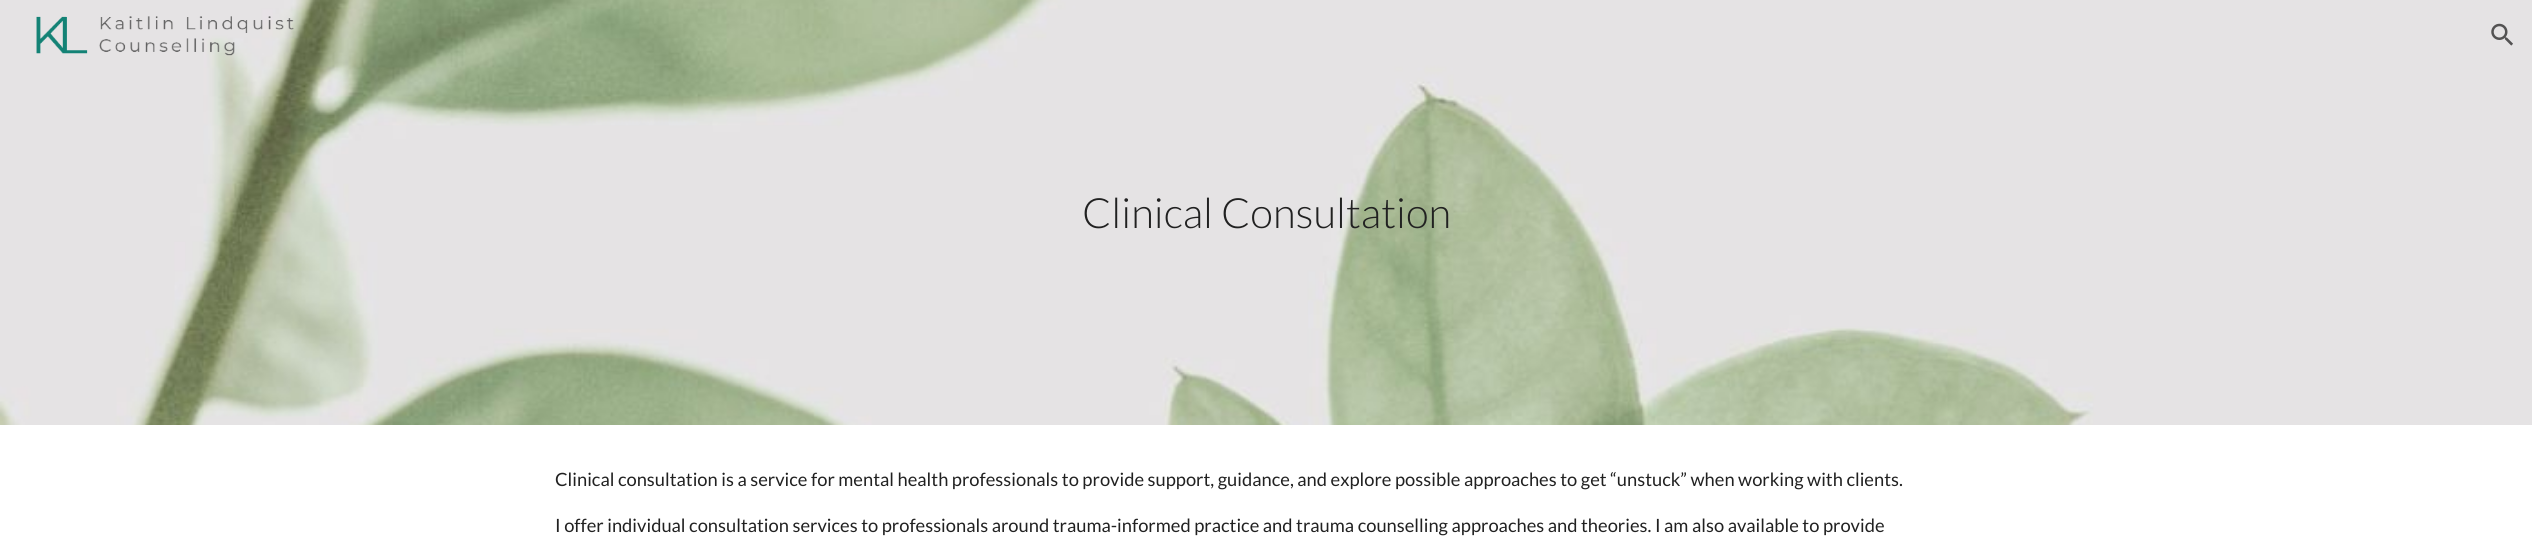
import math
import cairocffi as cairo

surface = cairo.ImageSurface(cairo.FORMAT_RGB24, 2532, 541)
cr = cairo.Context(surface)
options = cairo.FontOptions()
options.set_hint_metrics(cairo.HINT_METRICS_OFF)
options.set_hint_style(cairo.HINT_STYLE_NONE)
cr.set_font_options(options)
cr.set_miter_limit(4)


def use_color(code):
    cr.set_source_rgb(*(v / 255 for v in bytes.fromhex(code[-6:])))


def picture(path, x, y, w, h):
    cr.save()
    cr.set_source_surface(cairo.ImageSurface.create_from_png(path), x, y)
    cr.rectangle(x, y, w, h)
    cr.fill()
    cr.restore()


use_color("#ffffff")
cr.paint()
picture("img3.png", 0, 0, 2532, 425)
picture("img1.png", 36, 16, 258, 40)
picture("img2.png", 2491, 23, 22, 23)
cr.select_font_face("Lato Light")
cr.set_font_size(41.75)
use_color("#212121")
cr.move_to(1082, 228)
cr.show_text("Clinical Consultation")
cr.select_font_face("Lato")
cr.set_font_size(18.33)
cr.move_to(555, 486)
cr.show_text("Clinical consultation is a service for mental health professionals to provide support, guidance, and explore possible approaches to get “unstuck” when working with clients.")
cr.move_to(555, 532)
cr.show_text("I offer individual consultation services to professionals around trauma-informed practice and trauma counselling approaches and theories. I am also available to provide")
surface.write_to_png("result.png")
